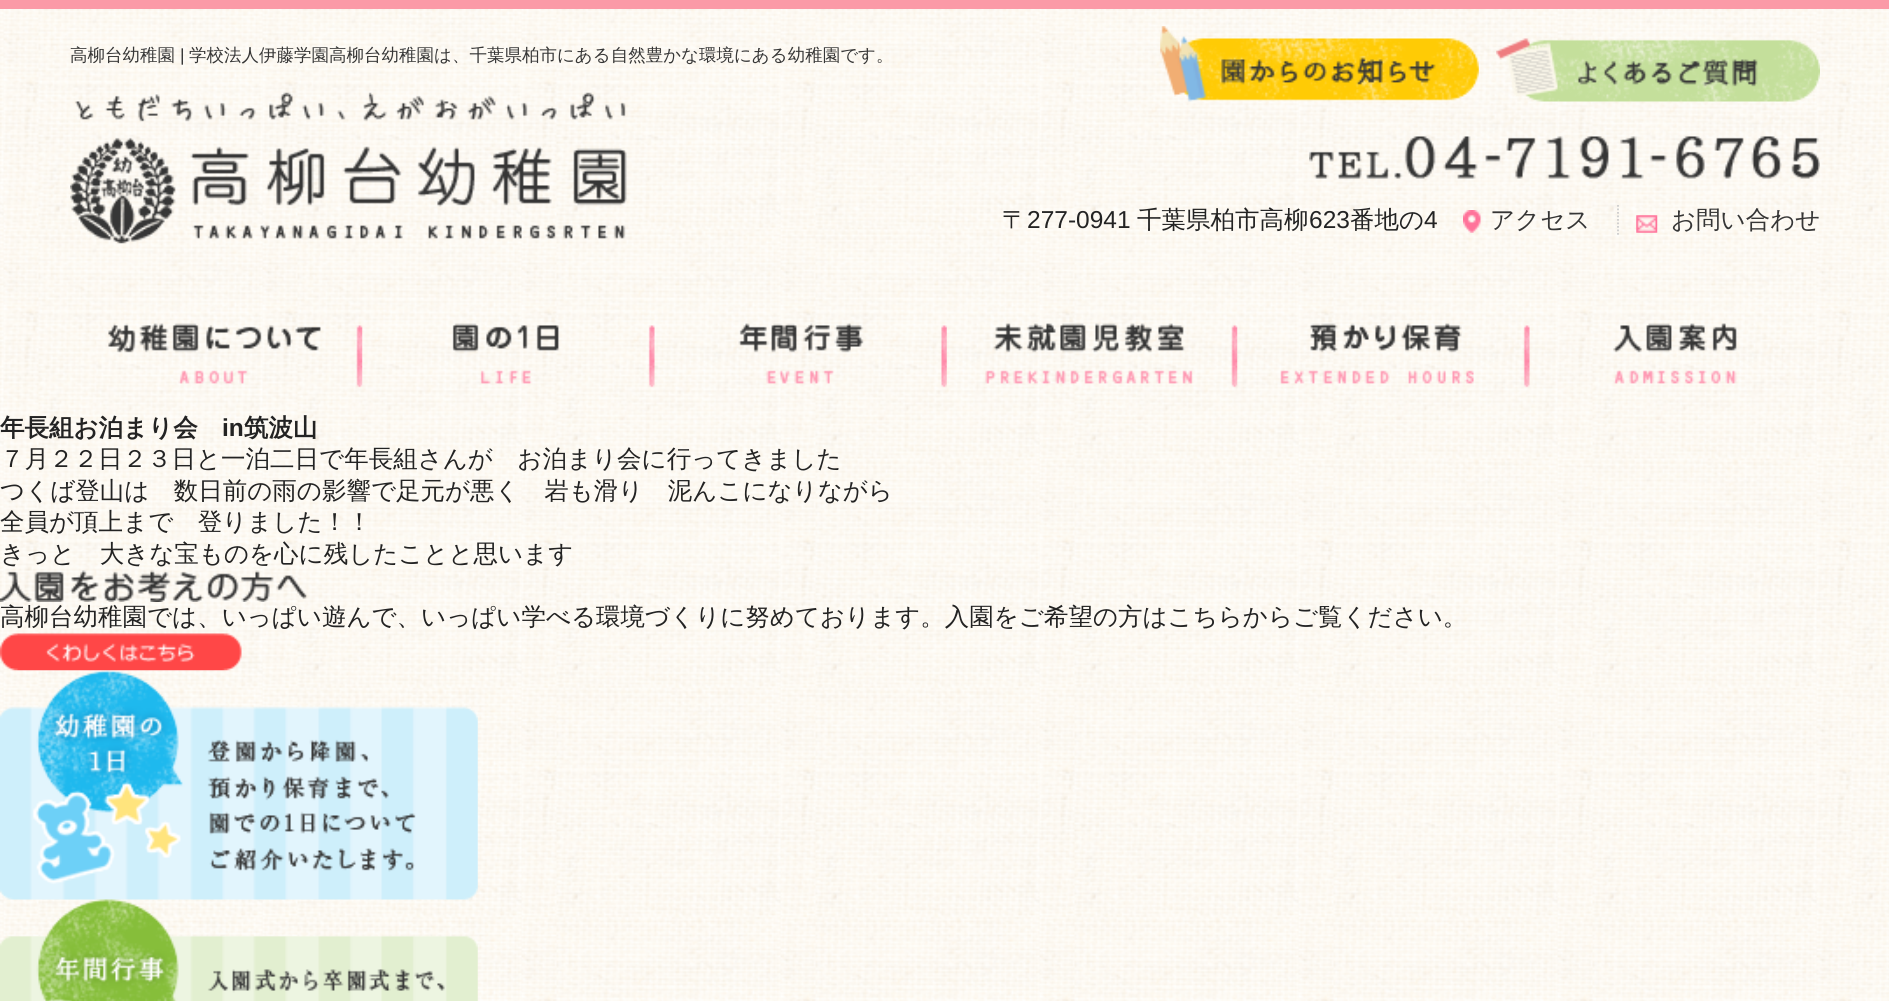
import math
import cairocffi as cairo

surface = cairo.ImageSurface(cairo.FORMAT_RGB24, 1889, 1001)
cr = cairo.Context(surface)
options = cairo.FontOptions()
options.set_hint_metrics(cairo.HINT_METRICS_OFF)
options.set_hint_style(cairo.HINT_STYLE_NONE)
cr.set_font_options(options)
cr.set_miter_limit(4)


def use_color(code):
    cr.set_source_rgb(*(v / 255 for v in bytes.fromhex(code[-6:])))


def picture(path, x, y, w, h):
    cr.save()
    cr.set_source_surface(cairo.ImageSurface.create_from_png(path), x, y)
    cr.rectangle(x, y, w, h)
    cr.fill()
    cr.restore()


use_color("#ffffff")
cr.paint()
picture("img1.png", 0, 9, 1889, 992)
use_color("#fb9aa7")
cr.rectangle(0, 0, 1889, 9)
cr.fill()
cr.select_font_face("WenQuanYi Zen Hei Medium")
cr.set_font_size(17.5)
use_color("#363636")
cr.move_to(70, 61)
cr.show_text("高柳台幼稚園")
cr.select_font_face("Liberation Sans")
cr.move_to(180, 61)
cr.show_text("|")
cr.select_font_face("WenQuanYi Zen Hei Medium")
cr.move_to(189, 61)
cr.show_text("学校法人伊藤学園高柳台幼稚園は、千葉県柏市にある自然豊かな環境にある幼稚園です。")
picture("img2.png", 1160, 26, 319, 76)
picture("img3.png", 1496, 38, 324, 64)
picture("img4.png", 70, 92, 557, 152)
picture("img5.png", 1309, 136, 511, 43)
cr.set_font_size(24.5)
use_color("#232323")
cr.move_to(1002, 228)
cr.show_text("〒")
cr.select_font_face("Liberation Sans")
cr.move_to(1027, 228)
cr.show_text("277-0941")
cr.select_font_face("WenQuanYi Zen Hei Medium")
cr.move_to(1137, 228)
cr.show_text("千葉県柏市高柳")
cr.select_font_face("Liberation Sans")
cr.move_to(1309, 228)
cr.show_text("623")
cr.select_font_face("WenQuanYi Zen Hei Medium")
cr.move_to(1350, 228)
cr.show_text("番地の")
cr.select_font_face("Liberation Sans")
cr.move_to(1424, 228)
cr.show_text("4")
picture("img6.png", 1463, 210, 18, 23)
cr.select_font_face("WenQuanYi Zen Hei Medium")
use_color("#363636")
cr.move_to(1490, 228)
cr.show_text("アクセス")
picture("img7.png", 1636, 215, 22, 18)
cr.new_path()
cr.move_to(1618, 205)
cr.line_to(1618, 236)
use_color("#cccccc")
cr.set_line_width(1.8)
cr.set_dash([1.75, 1.75])
cr.stroke()
use_color("#363636")
cr.move_to(1671, 228)
cr.show_text("お問い合わせ")
picture("img8.png", 108, 323, 255, 65)
picture("img9.png", 452, 323, 203, 65)
picture("img10.png", 738, 323, 209, 65)
picture("img11.png", 985, 323, 253, 65)
picture("img12.png", 1280, 323, 250, 65)
picture("img13.png", 1613, 323, 124, 61)
cr.select_font_face("WenQuanYi Zen Hei", cairo.FONT_SLANT_NORMAL, cairo.FONT_WEIGHT_BOLD)
use_color("#232323")
cr.move_to(0, 436)
cr.show_text("年長組お泊まり会")
cr.select_font_face("Liberation Sans", cairo.FONT_SLANT_NORMAL, cairo.FONT_WEIGHT_BOLD)
cr.move_to(222, 436)
cr.show_text("in")
cr.select_font_face("WenQuanYi Zen Hei", cairo.FONT_SLANT_NORMAL, cairo.FONT_WEIGHT_BOLD)
cr.move_to(244, 436)
cr.show_text("筑波山")
cr.select_font_face("WenQuanYi Zen Hei Medium")
cr.move_to(0, 467)
cr.show_text("７月２２日２３日と一泊二日で年長組さんが　お泊まり会に行ってきました")
cr.move_to(0, 499)
cr.show_text("つくば登山は　数日前の雨の影響で足元が悪く　岩も滑り　泥んこになりながら")
cr.move_to(0, 530)
cr.show_text("全員が頂上まで　登りました！！")
cr.move_to(0, 562)
cr.show_text("きっと　大きな宝ものを心に残したことと思います")
picture("img14.png", 0, 570, 307, 32)
cr.move_to(0, 625)
cr.show_text("高柳台幼稚園では、いっぱい遊んで、いっぱい学べる環境づくりに努めております。入園をご希望の方はこちらからご覧ください。")
picture("img15.png", 0, 633, 242, 38)
picture("img16.png", 0, 670, 478, 230)
picture("img17.png", 0, 899, 478, 102)
surface.write_to_png("result.png")
